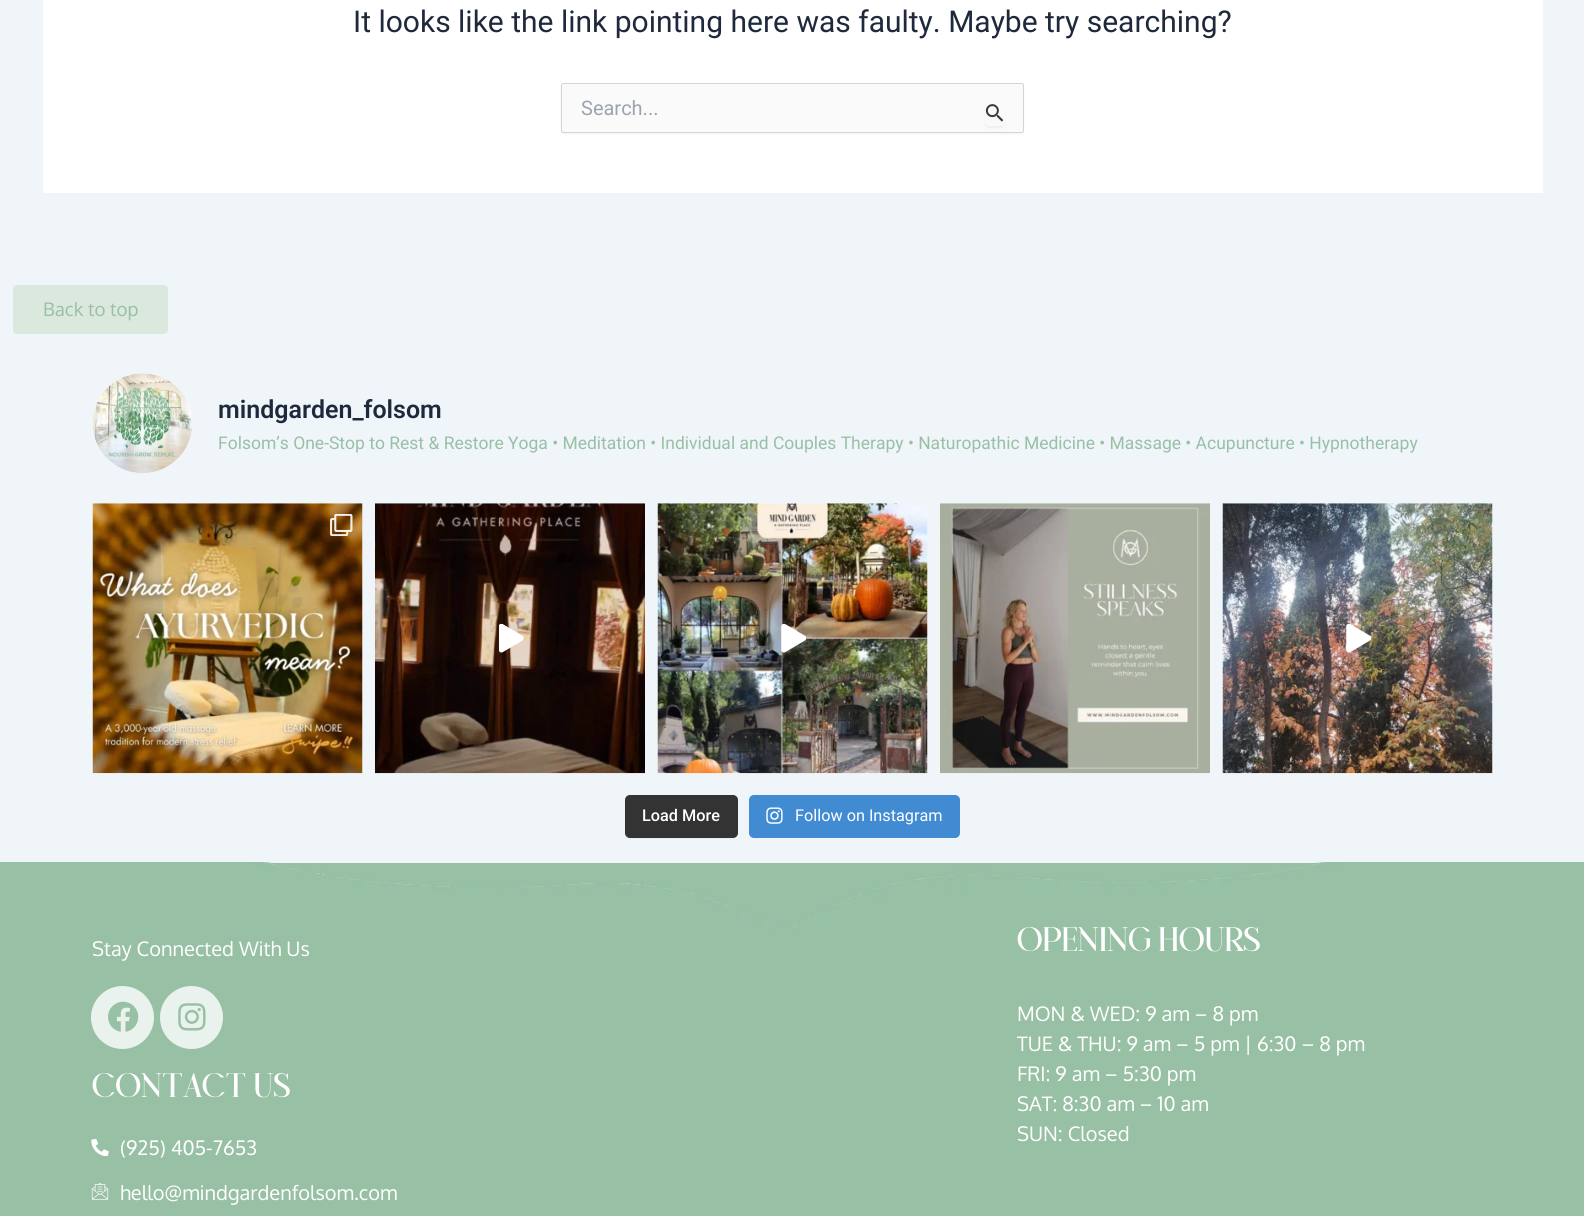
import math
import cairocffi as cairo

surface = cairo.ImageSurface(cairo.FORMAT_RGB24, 1584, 1216)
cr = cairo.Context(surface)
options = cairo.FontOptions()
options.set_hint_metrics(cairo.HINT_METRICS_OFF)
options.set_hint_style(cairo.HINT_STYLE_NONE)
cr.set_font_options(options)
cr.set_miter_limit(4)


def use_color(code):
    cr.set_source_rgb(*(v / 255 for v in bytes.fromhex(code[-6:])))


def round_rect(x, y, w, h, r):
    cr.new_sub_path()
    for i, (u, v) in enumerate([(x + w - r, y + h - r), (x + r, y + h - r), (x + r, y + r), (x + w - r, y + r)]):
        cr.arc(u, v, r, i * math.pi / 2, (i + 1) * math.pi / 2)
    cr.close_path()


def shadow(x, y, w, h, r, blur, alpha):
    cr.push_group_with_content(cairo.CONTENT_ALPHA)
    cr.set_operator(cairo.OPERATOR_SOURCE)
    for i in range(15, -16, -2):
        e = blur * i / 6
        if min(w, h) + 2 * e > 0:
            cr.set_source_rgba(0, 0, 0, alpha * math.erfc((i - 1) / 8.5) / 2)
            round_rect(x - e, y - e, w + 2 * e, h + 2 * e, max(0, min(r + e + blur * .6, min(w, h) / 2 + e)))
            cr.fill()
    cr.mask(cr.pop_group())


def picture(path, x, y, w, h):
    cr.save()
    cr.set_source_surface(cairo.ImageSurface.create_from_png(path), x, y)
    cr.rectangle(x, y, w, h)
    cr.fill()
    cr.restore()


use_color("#f0f5fa")
cr.paint()
use_color("#ffffff")
cr.rectangle(43, 0, 1500, 193)
cr.fill()
cr.select_font_face("Roboto")
cr.set_font_size(30)
use_color("#1e293b")
cr.move_to(353, 32)
cr.show_text("It looks like the link pointing here was faulty. Maybe try searching?")
use_color("#000000")
shadow(561, 84, 463, 50, 2.5, 1, 0.05)
use_color("#fafafa")
round_rect(561.5, 83.5, 462, 49, 2)
cr.fill_preserve()
use_color("#d1d5db")
cr.set_line_width(1)
cr.stroke()
cr.set_font_size(20)
use_color("#9ca3af")
cr.move_to(581, 115)
cr.show_text("Search...")
cr.save()
cr.set_fill_rule(cairo.FILL_RULE_EVEN_ODD)
cr.new_path()
cr.move_to(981, 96)
cr.line_to(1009, 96)
cr.line_to(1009, 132)
cr.line_to(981, 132)
cr.close_path()
cr.move_to(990, 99)
cr.line_to(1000, 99)
cr.curve_to(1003, 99, 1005, 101, 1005, 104)
cr.line_to(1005, 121)
cr.curve_to(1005, 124, 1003, 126, 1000, 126)
cr.line_to(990, 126)
cr.curve_to(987, 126, 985, 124, 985, 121)
cr.line_to(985, 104)
cr.curve_to(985, 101, 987, 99, 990, 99)
cr.close_path()
cr.clip()
use_color("#000000")
shadow(985, 100, 20, 28, 5, 1, 0.05)
cr.restore()
picture("img1.png", 985, 104, 18, 18)
use_color("#dae8de")
round_rect(13, 285, 155, 49, 4)
cr.fill()
cr.select_font_face("Oxygen")
cr.set_font_size(18.75)
use_color("#98c0a5")
cr.move_to(43, 316)
cr.show_text("Back to top")
picture("img2.png", 93, 373, 99, 100)
cr.select_font_face("Roboto SemiBold")
cr.set_font_size(25)
use_color("#1e293b")
cr.move_to(218, 418)
cr.show_text("mindgarden_folsom")
cr.select_font_face("Roboto")
cr.set_font_size(17.5)
use_color("#98c0a5")
cr.move_to(218, 449)
cr.show_text("Folsom’s One-Stop to Rest & Restore Yoga • Meditation • Individual and Couples Therapy • Naturopathic Medicine • Massage • Acupuncture • Hypnotherapy")
picture("img3.png", 92, 503, 271, 271)
picture("img4.png", 330, 514, 23, 22)
picture("img5.png", 375, 503, 270, 271)
picture("img6.png", 499, 624, 25, 29)
picture("img7.png", 657, 503, 271, 271)
picture("img8.png", 781, 624, 25, 29)
picture("img9.png", 940, 503, 270, 271)
picture("img10.png", 1222, 503, 271, 271)
picture("img11.png", 1346, 624, 25, 29)
use_color("#000000")
shadow(625, 796, 113, 43, 5, 1, 0.05)
use_color("#333333")
round_rect(625, 795, 113, 43, 5)
cr.fill()
cr.select_font_face("Roboto Medium")
cr.set_font_size(16.25)
use_color("#ffffff")
cr.move_to(642, 821)
cr.show_text("Load More")
use_color("#408bd1")
round_rect(749, 795, 211, 43, 5)
cr.fill()
picture("img12.png", 766, 807, 17, 17)
cr.select_font_face("Roboto")
use_color("#ffffff")
cr.move_to(795, 821)
cr.show_text("Follow on Instagram")
use_color("#98c0a5")
cr.rectangle(0, 863, 1584, 353)
cr.fill()
picture("img13.png", 0, 862, 1584, 69)
cr.select_font_face("Oxygen")
cr.set_font_size(20)
use_color("#ffffff")
cr.move_to(92, 956)
cr.show_text("Stay Connected With Us")
use_color("#e9f2ec")
cr.new_path()
cr.arc(122.5, 1017.5, 31.5, 0, 2 * math.pi)
cr.fill()
picture("img14.png", 108, 1001, 31, 31)
cr.arc(191.5, 1017.5, 31.5, 0, 2 * math.pi)
cr.fill()
picture("img15.png", 178, 1003, 28, 28)
cr.select_font_face("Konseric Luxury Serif")
cr.set_font_size(25)
use_color("#ffffff")
cr.move_to(92, 1097)
cr.show_text("Contact us")
picture("img16.png", 91, 1139, 18, 17)
cr.select_font_face("Oxygen")
cr.set_font_size(20)
cr.move_to(120, 1155)
cr.show_text("(925) 405-7653")
picture("img17.png", 91, 1183, 18, 17)
cr.move_to(120, 1200)
cr.show_text("hello@mindgardenfolsom.com")
cr.select_font_face("Konseric Luxury Serif")
cr.set_font_size(25)
cr.move_to(1017, 951)
cr.show_text("OPENING HOURS")
cr.select_font_face("Oxygen")
cr.set_font_size(20)
cr.move_to(1017, 1021)
cr.show_text("MON & WED: 9 am – 8 pm")
cr.move_to(1017, 1051)
cr.show_text("TUE & THU: 9 am – 5 pm | 6:30 – 8 pm")
cr.move_to(1017, 1081)
cr.show_text("FRI: 9 am – 5:30 pm")
cr.move_to(1017, 1111)
cr.show_text("SAT: 8:30 am – 10 am")
cr.move_to(1017, 1141)
cr.show_text("SUN: Closed")
surface.write_to_png("result.png")
